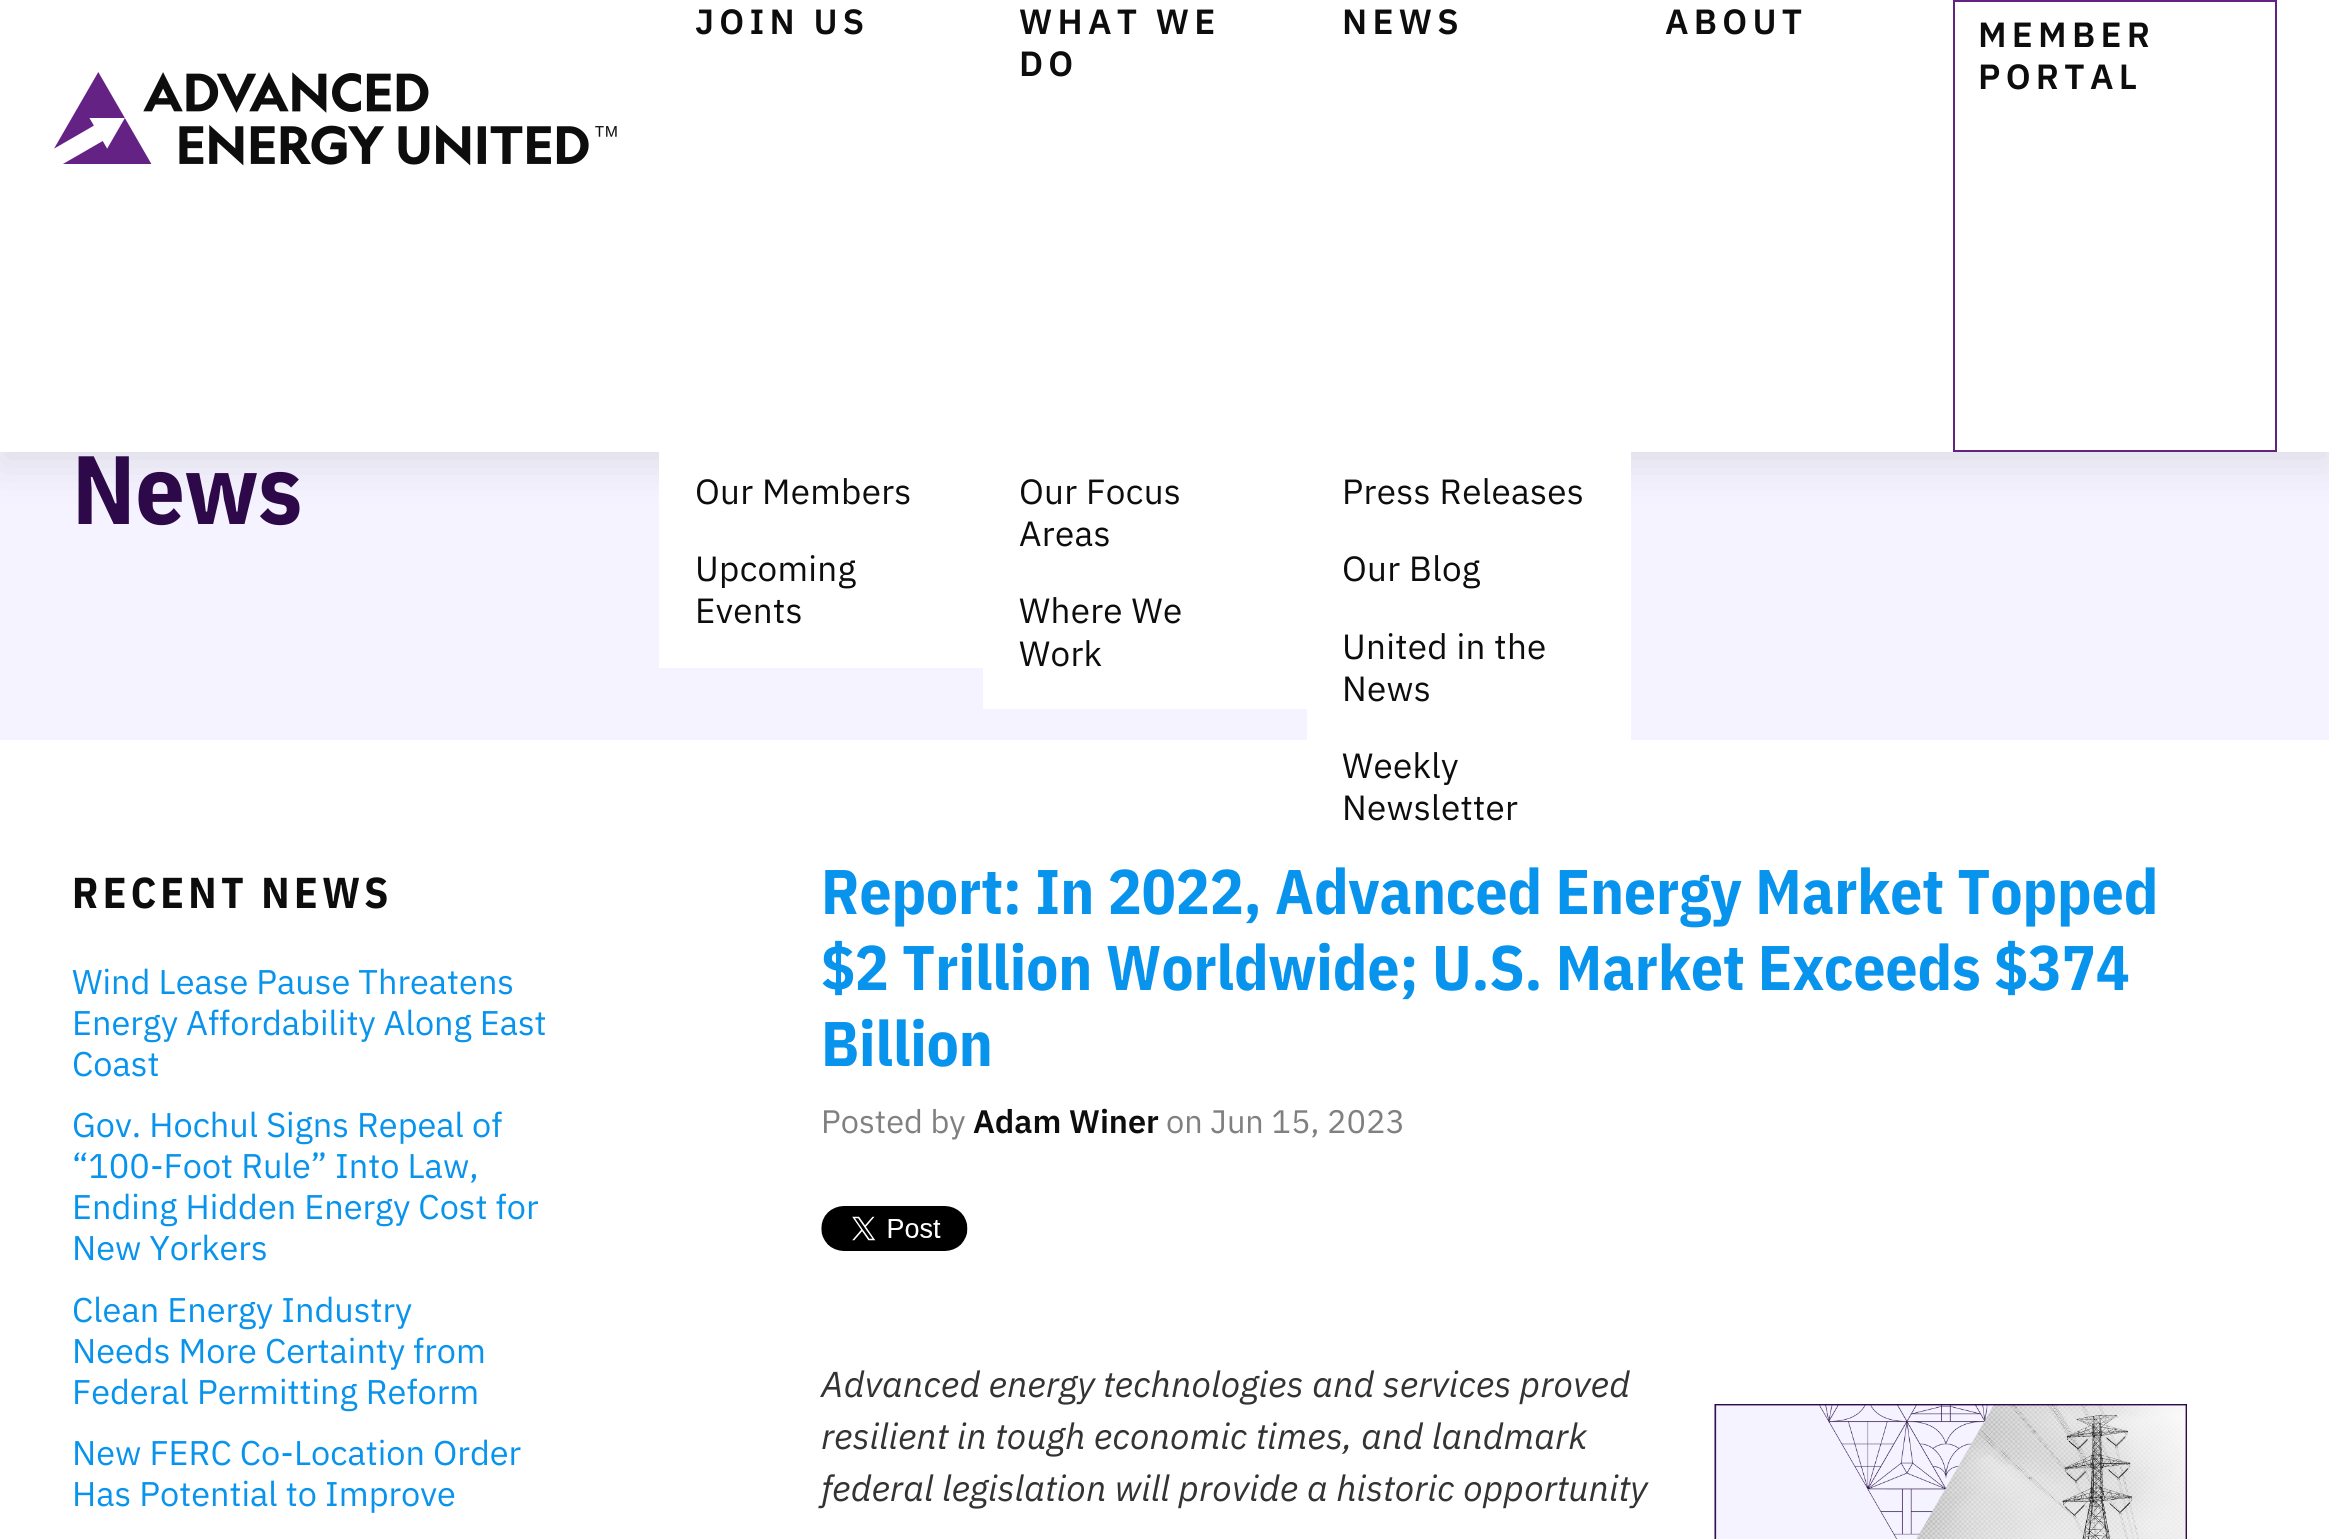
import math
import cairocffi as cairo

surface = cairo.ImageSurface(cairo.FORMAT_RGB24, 2329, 1539)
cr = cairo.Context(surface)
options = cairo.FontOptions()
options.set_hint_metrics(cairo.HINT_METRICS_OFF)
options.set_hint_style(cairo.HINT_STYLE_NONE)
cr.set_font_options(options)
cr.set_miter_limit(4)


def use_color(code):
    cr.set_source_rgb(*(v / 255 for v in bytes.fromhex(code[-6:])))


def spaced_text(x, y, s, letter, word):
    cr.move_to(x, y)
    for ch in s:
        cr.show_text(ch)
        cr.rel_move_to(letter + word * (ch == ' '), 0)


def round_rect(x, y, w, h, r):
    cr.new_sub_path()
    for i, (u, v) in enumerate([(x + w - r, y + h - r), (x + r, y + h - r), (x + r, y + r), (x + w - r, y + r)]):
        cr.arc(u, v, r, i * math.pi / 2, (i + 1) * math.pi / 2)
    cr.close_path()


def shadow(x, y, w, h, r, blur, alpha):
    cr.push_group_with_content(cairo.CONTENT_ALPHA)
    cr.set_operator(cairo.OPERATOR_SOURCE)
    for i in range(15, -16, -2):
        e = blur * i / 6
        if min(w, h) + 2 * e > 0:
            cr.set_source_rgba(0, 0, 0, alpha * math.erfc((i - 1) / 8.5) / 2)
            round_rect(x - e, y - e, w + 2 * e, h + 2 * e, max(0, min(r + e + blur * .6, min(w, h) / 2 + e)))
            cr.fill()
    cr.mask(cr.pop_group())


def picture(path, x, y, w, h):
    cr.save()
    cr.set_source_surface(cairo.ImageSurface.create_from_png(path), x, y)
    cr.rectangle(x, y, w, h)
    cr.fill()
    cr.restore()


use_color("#ffffff")
cr.paint()
use_color("#f4f3ff")
cr.rectangle(0, 452, 2329, 288)
cr.fill()
use_color("#000000")
shadow(0, 11, 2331, 453, 0, 22.5, 0.1)
use_color("#ffffff")
cr.rectangle(0, 0, 2329, 452)
cr.fill()
picture("img1.png", 54, 72, 563, 94)
cr.select_font_face("IBM Plex Sans SemiBold")
cr.set_font_size(35)
use_color("#0d0d0d")
spaced_text(695, 34, "JOIN US", 5.25, 0)
use_color("#ffffff")
cr.rectangle(659, 452, 324, 216)
cr.fill()
cr.select_font_face("IBM Plex Sans")
use_color("#0d0d0d")
spaced_text(695, 504, "Our Members", 0.3, 0)
spaced_text(695, 581, "Upcoming", 0.3, 0)
spaced_text(695, 623, "Events", 0.3, 0)
cr.select_font_face("IBM Plex Sans SemiBold")
spaced_text(1019, 34, "WHAT WE", 5.25, 0)
spaced_text(1019, 76, "DO", 5.25, 0)
use_color("#ffffff")
cr.rectangle(983, 452, 324, 257)
cr.fill()
cr.select_font_face("IBM Plex Sans")
use_color("#0d0d0d")
spaced_text(1019, 504, "Our Focus", 0.3, 0)
spaced_text(1019, 546, "Areas", 0.3, 0)
spaced_text(1019, 623, "Where We", 0.3, 0)
spaced_text(1019, 666, "Work", 0.3, 0)
cr.select_font_face("IBM Plex Sans SemiBold")
spaced_text(1342, 34, "NEWS", 5.25, 0)
use_color("#ffffff")
cr.rectangle(1307, 452, 324, 288)
cr.fill()
cr.select_font_face("IBM Plex Sans")
use_color("#0d0d0d")
spaced_text(1342, 504, "Press Releases", 0.3, 0)
spaced_text(1342, 581, "Our Blog", 0.3, 0)
spaced_text(1342, 659, "United in the", 0.3, 0)
spaced_text(1342, 701, "News", 0.3, 0)
spaced_text(1342, 778, "Weekly", 0.3, 0)
spaced_text(1342, 820, "Newsletter", 0.3, 0)
cr.select_font_face("IBM Plex Sans SemiBold")
spaced_text(1665, 34, "ABOUT", 5.25, 0)
cr.rectangle(1954, 1, 322, 450)
use_color("#642285")
cr.stroke()
use_color("#0d0d0d")
spaced_text(1978, 47, "MEMBER", 5.25, 0)
spaced_text(1978, 89, "PORTAL", 5.25, 0)
cr.select_font_face("IBM Plex Sans Condensed", cairo.FONT_SLANT_NORMAL, cairo.FONT_WEIGHT_BOLD)
cr.set_font_size(97)
use_color("#2e0949")
cr.move_to(72, 524)
cr.show_text("News")
cr.set_font_size(43.25)
use_color("#0d0d0d")
spaced_text(72, 908, "RECENT NEWS", 4.25, 0)
cr.select_font_face("IBM Plex Sans")
cr.set_font_size(34.25)
use_color("#0893ed")
cr.move_to(72, 994)
cr.show_text("Wind Lease Pause Threatens")
cr.move_to(72, 1035)
cr.show_text("Energy Affordability Along East")
cr.move_to(72, 1076)
cr.show_text("Coast")
cr.move_to(72, 1137)
cr.show_text("Gov. Hochul Signs Repeal of")
cr.move_to(72, 1178)
cr.show_text("“100-Foot Rule” Into Law,")
cr.move_to(72, 1219)
cr.show_text("Ending Hidden Energy Cost for")
cr.move_to(72, 1260)
cr.show_text("New Yorkers")
cr.move_to(72, 1322)
cr.show_text("Clean Energy Industry")
cr.move_to(72, 1363)
cr.show_text("Needs More Certainty from")
cr.move_to(72, 1404)
cr.show_text("Federal Permitting Reform")
cr.move_to(72, 1465)
cr.show_text("New FERC Co-Location Order")
cr.move_to(72, 1506)
cr.show_text("Has Potential to Improve")
cr.select_font_face("IBM Plex Sans Condensed", cairo.FONT_SLANT_NORMAL, cairo.FONT_WEIGHT_BOLD)
cr.set_font_size(63)
cr.move_to(821, 914)
cr.show_text("Report: In 2022, Advanced Energy Market Topped")
cr.move_to(821, 990)
cr.show_text("$2 Trillion Worldwide; U.S. Market Exceeds $374")
cr.move_to(821, 1066)
cr.show_text("Billion")
cr.select_font_face("IBM Plex Sans")
cr.set_font_size(32.5)
use_color("#808080")
cr.move_to(821, 1133)
cr.show_text("Posted by")
cr.select_font_face("IBM Plex Sans SemiBold")
use_color("#0d0d0d")
cr.move_to(973, 1133)
cr.show_text("Adam Winer")
cr.select_font_face("IBM Plex Sans")
use_color("#808080")
cr.move_to(1166, 1133)
cr.show_text("on Jun 15, 2023")
picture("img2.png", 821, 1206, 147, 45)
cr.select_font_face("IBM Plex Sans", cairo.FONT_SLANT_ITALIC)
cr.set_font_size(36)
use_color("#333333")
cr.move_to(821, 1397)
cr.show_text("Advanced energy technologies and services proved")
cr.move_to(821, 1449)
cr.show_text("resilient in tough economic times, and landmark")
cr.move_to(821, 1501)
cr.show_text("federal legislation will provide a historic opportunity")
picture("img3.png", 1714, 1404, 473, 135)
surface.write_to_png("result.png")
